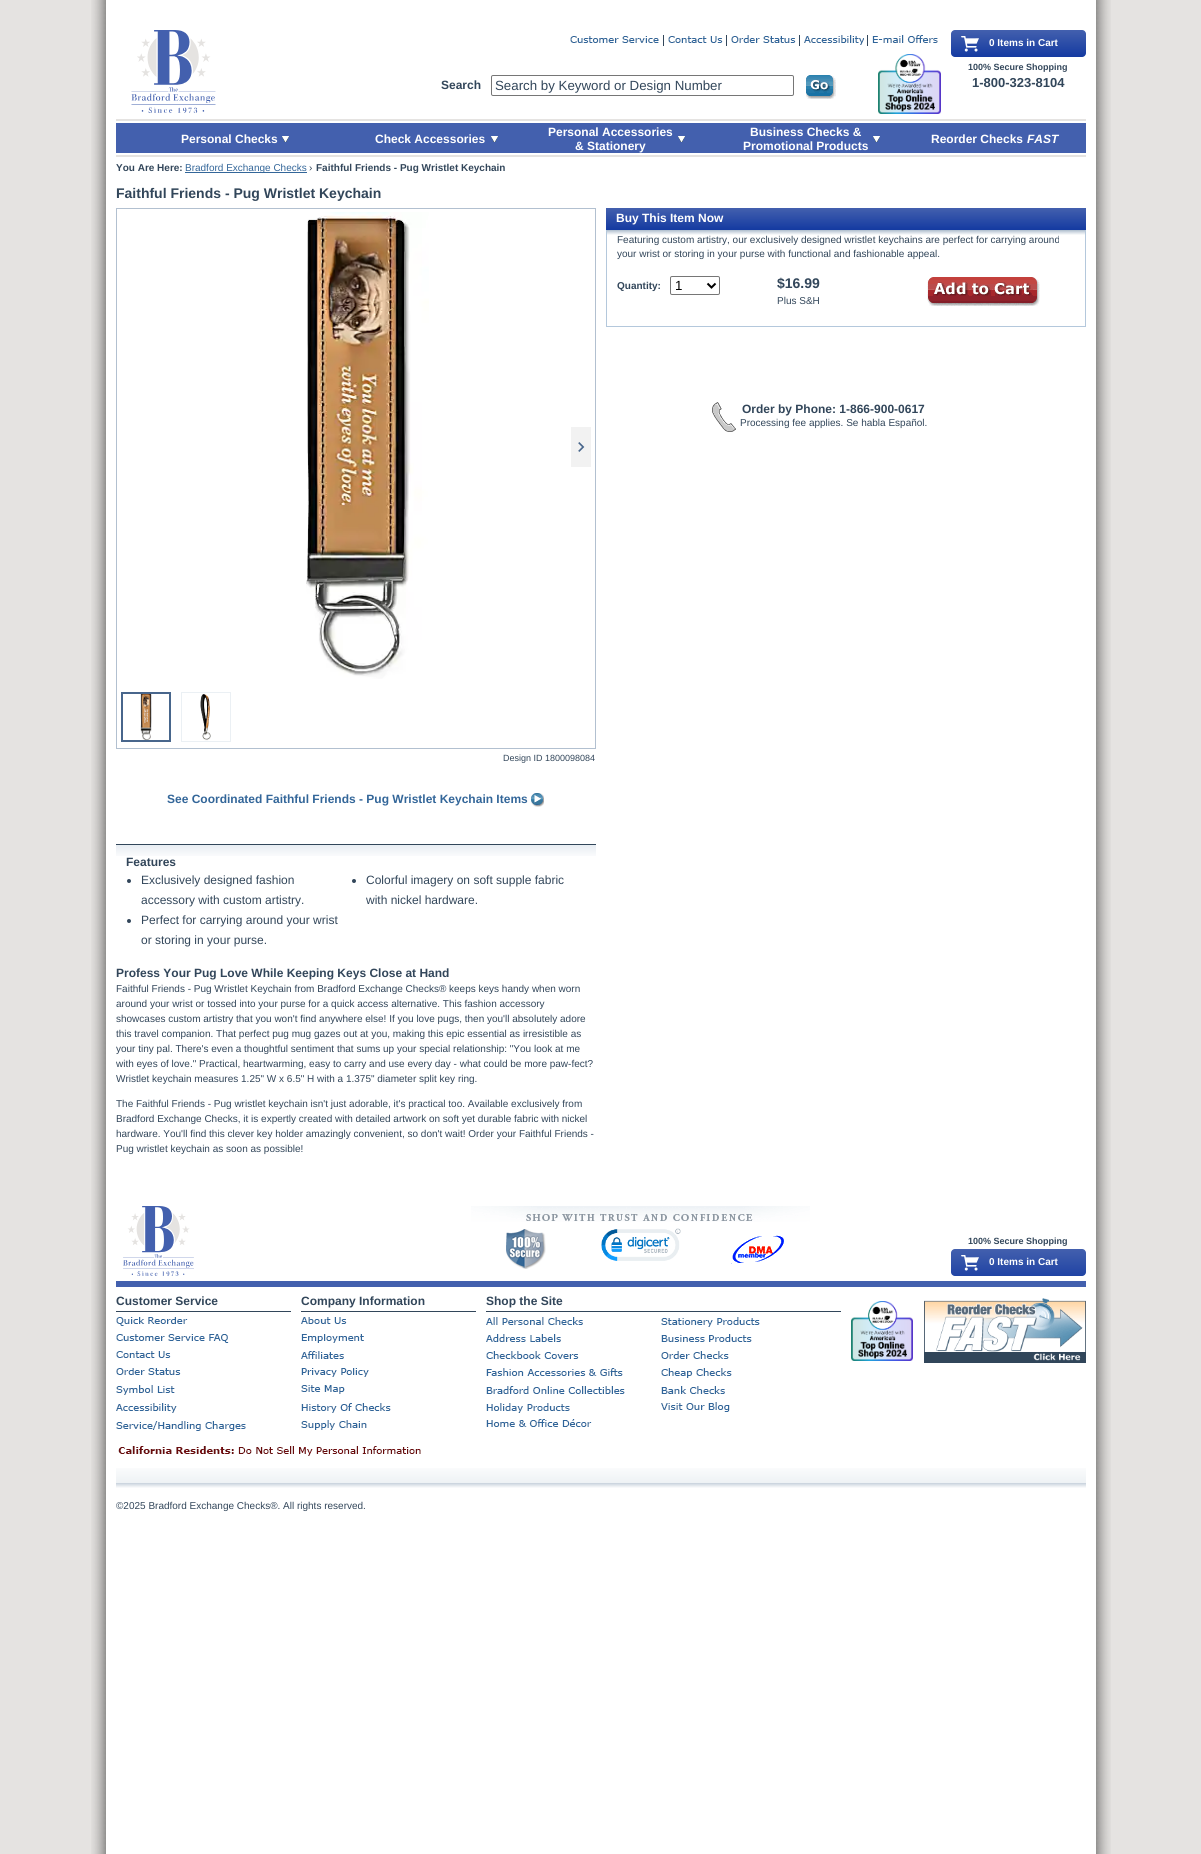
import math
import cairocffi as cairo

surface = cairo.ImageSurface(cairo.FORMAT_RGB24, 1201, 1854)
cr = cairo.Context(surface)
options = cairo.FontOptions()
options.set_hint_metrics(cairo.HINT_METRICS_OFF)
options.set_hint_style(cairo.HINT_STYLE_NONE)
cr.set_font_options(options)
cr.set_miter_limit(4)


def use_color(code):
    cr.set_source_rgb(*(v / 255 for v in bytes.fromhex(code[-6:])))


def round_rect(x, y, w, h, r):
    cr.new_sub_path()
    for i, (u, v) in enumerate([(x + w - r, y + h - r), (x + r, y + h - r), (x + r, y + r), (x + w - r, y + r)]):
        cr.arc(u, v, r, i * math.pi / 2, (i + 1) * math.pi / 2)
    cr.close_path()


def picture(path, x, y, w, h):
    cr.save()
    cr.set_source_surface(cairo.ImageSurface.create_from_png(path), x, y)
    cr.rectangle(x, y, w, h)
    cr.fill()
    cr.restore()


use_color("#e5e3e1")
cr.paint()
picture("img1.png", 91, 0, 1020, 1854)
picture("img2.png", 131, 30, 85, 83)
use_color("#32465a")
cr.rectangle(663, 35, 1, 11)
cr.fill()
picture("img3.png", 570, 36, 89, 7)
cr.rectangle(726, 35, 1, 11)
cr.fill()
picture("img4.png", 668, 36, 55, 7)
cr.rectangle(799, 35, 1, 11)
cr.fill()
picture("img5.png", 731, 35, 65, 8)
cr.rectangle(867, 35, 1, 11)
cr.fill()
picture("img6.png", 804, 35, 60, 10)
picture("img7.png", 872, 35, 66, 8)
gradient = cairo.LinearGradient(1019, 30, 1019, 57)
gradient.add_color_stop_rgba(0, 0.263, 0.376, 0.682, 1)
gradient.add_color_stop_rgba(1, 0.078, 0.227, 0.631, 1)
cr.set_source(gradient)
round_rect(951, 30, 135, 27, 4)
cr.fill()
picture("img8.png", 961, 36, 18, 16)
cr.select_font_face("Liberation Sans", cairo.FONT_SLANT_NORMAL, cairo.FONT_WEIGHT_BOLD)
cr.set_font_size(10)
use_color("#ffffff")
cr.move_to(989, 46)
cr.show_text("0 Items in Cart")
cr.set_font_size(9)
use_color("#32465a")
cr.move_to(968, 70)
cr.show_text("100% Secure Shopping")
cr.set_font_size(13)
cr.move_to(972, 87)
cr.show_text("1-800-323-8104")
cr.set_font_size(12)
cr.move_to(441, 89)
cr.show_text("Search")
round_rect(491.5, 75.5, 302, 20, 1.5)
use_color("#767676")
cr.set_line_width(1)
cr.stroke()
cr.select_font_face("Liberation Sans")
cr.set_font_size(13.3)
use_color("#32465a")
cr.move_to(495, 90)
cr.show_text("Search by Keyword or Design Number")
picture("img9.png", 806, 75, 30, 24)
picture("img10.png", 878, 54, 63, 60)
use_color("#4360ae")
cr.rectangle(116, 123, 970, 30)
cr.fill()
use_color("#e5e3e1")
cr.rectangle(116, 119, 970, 2)
cr.fill()
cr.select_font_face("Liberation Sans", cairo.FONT_SLANT_NORMAL, cairo.FONT_WEIGHT_BOLD)
cr.set_font_size(12)
use_color("#ffffff")
cr.move_to(181, 143)
cr.show_text("Personal Checks")
picture("img11.png", 282, 136, 7, 6)
cr.move_to(375, 143)
cr.show_text("Check Accessories")
picture("img11.png", 491, 136, 7, 6)
cr.move_to(548, 136)
cr.show_text("Personal Accessories")
cr.move_to(575, 150)
cr.show_text("& Stationery")
picture("img11.png", 678, 136, 7, 6)
cr.move_to(750, 136)
cr.show_text("Business Checks &")
cr.move_to(743, 150)
cr.show_text("Promotional Products")
picture("img11.png", 873, 136, 7, 6)
cr.move_to(931, 143)
cr.show_text("Reorder Checks")
cr.select_font_face("Liberation Sans", cairo.FONT_SLANT_ITALIC, cairo.FONT_WEIGHT_BOLD)
cr.move_to(1027, 143)
cr.show_text("FAST")
use_color("#e5e3e1")
cr.rectangle(116, 155, 970, 2)
cr.fill()
cr.select_font_face("Liberation Sans", cairo.FONT_SLANT_NORMAL, cairo.FONT_WEIGHT_BOLD)
cr.set_font_size(10)
use_color("#32465a")
cr.move_to(116, 171)
cr.show_text("You Are Here:")
use_color("#336699")
cr.rectangle(185, 172, 122, 1)
cr.fill()
cr.select_font_face("Liberation Sans")
cr.move_to(185, 171)
cr.show_text("Bradford Exchange Checks")
use_color("#32465a")
cr.move_to(309, 171)
cr.show_text("›")
cr.select_font_face("Liberation Sans", cairo.FONT_SLANT_NORMAL, cairo.FONT_WEIGHT_BOLD)
cr.move_to(316, 171)
cr.show_text("Faithful Friends - Pug Wristlet Keychain")
cr.set_font_size(14)
cr.move_to(116, 198)
cr.show_text("Faithful Friends - Pug Wristlet Keychain")
gradient = cairo.LinearGradient(846, 208, 846, 230)
gradient.add_color_stop_rgba(0, 0.263, 0.376, 0.682, 1)
gradient.add_color_stop_rgba(1, 0.078, 0.227, 0.631, 1)
cr.set_source(gradient)
cr.rectangle(606, 208, 480, 22)
cr.fill()
cr.set_font_size(12)
use_color("#ffffff")
cr.move_to(616, 222)
cr.show_text("Buy This Item Now")
picture("img12.png", 607, 230, 478, 5)
use_color("#b4c8dc")
cr.rectangle(1085, 230, 1, 97)
cr.fill()
cr.rectangle(606, 326, 480, 1)
cr.fill()
cr.rectangle(606, 230, 1, 97)
cr.fill()
cr.select_font_face("Liberation Sans")
cr.set_font_size(10)
use_color("#32465a")
cr.move_to(617, 243)
cr.show_text("Featuring custom artistry, our exclusively designed wristlet keychains are perfect for carrying around")
cr.move_to(617, 257)
cr.show_text("your wrist or storing in your purse with functional and fashionable appeal.")
cr.select_font_face("Liberation Sans", cairo.FONT_SLANT_NORMAL, cairo.FONT_WEIGHT_BOLD)
cr.move_to(617, 289)
cr.show_text("Quantity:")
round_rect(670.5, 276.5, 49, 18, 1.5)
use_color("#767676")
cr.stroke()
cr.new_path()
cr.move_to(707.5, 283.5)
cr.line_to(711.5, 287.5)
cr.line_to(715.5, 283.5)
use_color("#000000")
cr.set_line_width(2)
cr.stroke()
cr.select_font_face("Liberation Sans")
cr.set_font_size(13.3)
cr.move_to(675, 290)
cr.show_text("1")
cr.select_font_face("Liberation Sans", cairo.FONT_SLANT_NORMAL, cairo.FONT_WEIGHT_BOLD)
cr.set_font_size(14)
use_color("#32465a")
cr.move_to(777, 288)
cr.show_text("$16.99")
cr.select_font_face("Liberation Sans")
cr.set_font_size(10)
cr.move_to(777, 304)
cr.show_text("Plus S&H")
picture("img13.png", 927, 277, 113, 29)
picture("img14.png", 712, 402, 24, 30)
cr.select_font_face("Liberation Sans", cairo.FONT_SLANT_NORMAL, cairo.FONT_WEIGHT_BOLD)
cr.set_font_size(12)
cr.move_to(742, 413)
cr.show_text("Order by Phone: 1-866-900-0617")
cr.select_font_face("Liberation Sans")
cr.set_font_size(10)
cr.move_to(740, 426)
cr.show_text("Processing fee applies. Se habla Español.")
cr.rectangle(116.5, 208.5, 479, 540)
use_color("#b2c0d0")
cr.set_line_width(1)
cr.stroke()
picture("img15.png", 306, 212, 123, 467)
use_color("#f2f2f2")
cr.rectangle(571, 427, 20, 40)
cr.fill()
picture("img16.png", 578, 442, 7, 10)
picture("img17.png", 140, 694, 12, 46)
cr.rectangle(122, 693, 48, 48)
use_color("#48668c")
cr.set_line_width(2)
cr.stroke()
cr.rectangle(181.5, 692.5, 49, 49)
use_color("#ebf0f4")
cr.set_line_width(1)
cr.stroke()
picture("img18.png", 200, 694, 11, 47)
cr.set_font_size(9)
use_color("#32465a")
cr.move_to(503, 761)
cr.show_text("Design ID 1800098084")
cr.select_font_face("Liberation Sans", cairo.FONT_SLANT_NORMAL, cairo.FONT_WEIGHT_BOLD)
cr.set_font_size(12)
use_color("#336699")
cr.move_to(167, 803)
cr.show_text("See Coordinated Faithful Friends - Pug Wristlet Keychain Items")
picture("img19.png", 531, 793, 13, 14)
picture("img20.png", 116, 844, 480, 12)
use_color("#32465a")
cr.move_to(126, 866)
cr.show_text("Features")
cr.new_path()
cr.arc(129, 881, 2, 0, 2 * math.pi)
cr.fill()
cr.select_font_face("Liberation Sans")
cr.move_to(141, 884)
cr.show_text("Exclusively designed fashion")
cr.move_to(141, 904)
cr.show_text("accessory with custom artistry.")
cr.new_path()
cr.arc(129, 921, 2, 0, 2 * math.pi)
cr.fill()
cr.move_to(141, 924)
cr.show_text("Perfect for carrying around your wrist")
cr.move_to(141, 944)
cr.show_text("or storing in your purse.")
cr.new_path()
cr.arc(354, 881, 2, 0, 2 * math.pi)
cr.fill()
cr.move_to(366, 884)
cr.show_text("Colorful imagery on soft supple fabric")
cr.move_to(366, 904)
cr.show_text("with nickel hardware.")
cr.select_font_face("Liberation Sans", cairo.FONT_SLANT_NORMAL, cairo.FONT_WEIGHT_BOLD)
cr.move_to(116, 977)
cr.show_text("Profess Your Pug Love While Keeping Keys Close at Hand")
cr.select_font_face("Liberation Sans")
cr.set_font_size(10)
cr.move_to(116, 992)
cr.show_text("Faithful Friends - Pug Wristlet Keychain from Bradford Exchange Checks® keeps keys handy when worn")
cr.move_to(116, 1007)
cr.show_text("around your wrist or tossed into your purse for a quick access alternative. This fashion accessory")
cr.move_to(116, 1022)
cr.show_text("showcases custom artistry that you won't find anywhere else! If you love pugs, then you'll absolutely adore")
cr.move_to(116, 1037)
cr.show_text("this travel companion. That perfect pug mug gazes out at you, making this epic essential as irresistible as")
cr.move_to(116, 1052)
cr.show_text("your tiny pal. There's even a thoughtful sentiment that sums up your special relationship: \"You look at me")
cr.move_to(116, 1067)
cr.show_text("with eyes of love.\" Practical, heartwarming, easy to carry and use every day - what could be more paw-fect?")
cr.move_to(116, 1082)
cr.show_text("Wristlet keychain measures 1.25\" W x 6.5\" H with a 1.375\" diameter split key ring.")
cr.move_to(116, 1107)
cr.show_text("The Faithful Friends - Pug wristlet keychain isn't just adorable, it's practical too. Available exclusively from")
cr.move_to(116, 1122)
cr.show_text("Bradford Exchange Checks, it is expertly created with detailed artwork on soft yet durable fabric with nickel")
cr.move_to(116, 1137)
cr.show_text("hardware. You'll find this clever key holder amazingly convenient, so don't wait! Order your Faithful Friends -")
cr.move_to(116, 1152)
cr.show_text("Pug wristlet keychain as soon as possible!")
picture("img21.png", 123, 1206, 71, 70)
picture("img22.png", 471, 1206, 339, 16)
picture("img23.png", 506, 1229, 40, 40)
picture("img24.png", 601, 1228, 80, 33)
picture("img25.png", 731, 1235, 53, 29)
cr.select_font_face("Liberation Sans", cairo.FONT_SLANT_NORMAL, cairo.FONT_WEIGHT_BOLD)
cr.set_font_size(9)
cr.move_to(968, 1244)
cr.show_text("100% Secure Shopping")
gradient = cairo.LinearGradient(1019, 1249, 1019, 1285)
gradient.add_color_stop_rgba(0, 0.263, 0.376, 0.682, 1)
gradient.add_color_stop_rgba(1, 0.078, 0.227, 0.631, 1)
cr.set_source(gradient)
round_rect(951, 1249, 135, 27, 4)
cr.fill()
picture("img26.png", 961, 1255, 18, 16)
cr.set_font_size(10)
use_color("#ffffff")
cr.move_to(989, 1265)
cr.show_text("0 Items in Cart")
use_color("#4360ae")
cr.rectangle(116, 1281, 970, 6)
cr.fill()
use_color("#32465a")
cr.rectangle(116, 1311, 175, 1)
cr.fill()
cr.set_font_size(12)
cr.move_to(116, 1305)
cr.show_text("Customer Service")
picture("img27.png", 116, 1317, 72, 9)
picture("img28.png", 116, 1334, 113, 9)
picture("img29.png", 116, 1351, 55, 7)
picture("img30.png", 116, 1368, 65, 7)
picture("img31.png", 116, 1385, 59, 10)
picture("img32.png", 116, 1403, 61, 10)
picture("img33.png", 116, 1421, 130, 10)
cr.rectangle(301, 1311, 175, 1)
cr.fill()
cr.move_to(301, 1305)
cr.show_text("Company Information")
picture("img34.png", 301, 1317, 46, 7)
picture("img35.png", 301, 1334, 63, 9)
picture("img36.png", 301, 1351, 43, 8)
picture("img37.png", 301, 1368, 68, 9)
picture("img38.png", 301, 1385, 44, 9)
picture("img39.png", 301, 1403, 90, 10)
picture("img40.png", 301, 1420, 66, 10)
cr.rectangle(486, 1311, 355, 1)
cr.fill()
cr.move_to(486, 1305)
cr.show_text("Shop the Site")
picture("img41.png", 486, 1317, 97, 8)
picture("img42.png", 486, 1334, 75, 8)
picture("img43.png", 486, 1351, 93, 8)
picture("img44.png", 486, 1368, 137, 8)
picture("img45.png", 486, 1386, 139, 8)
picture("img46.png", 486, 1403, 84, 10)
picture("img47.png", 486, 1419, 106, 8)
picture("img48.png", 661, 1317, 99, 10)
picture("img49.png", 661, 1334, 91, 8)
picture("img50.png", 661, 1351, 68, 8)
picture("img51.png", 661, 1368, 71, 10)
picture("img52.png", 661, 1386, 64, 8)
picture("img53.png", 661, 1402, 69, 10)
picture("img54.png", 851, 1301, 62, 60)
picture("img55.png", 924, 1298, 162, 65)
picture("img56.png", 118, 1446, 303, 10)
picture("img57.png", 116, 1468, 970, 20)
cr.select_font_face("Liberation Sans")
cr.set_font_size(10)
cr.move_to(116, 1509)
cr.show_text("©2025 Bradford Exchange Checks®. All rights reserved.")
surface.write_to_png("result.png")
